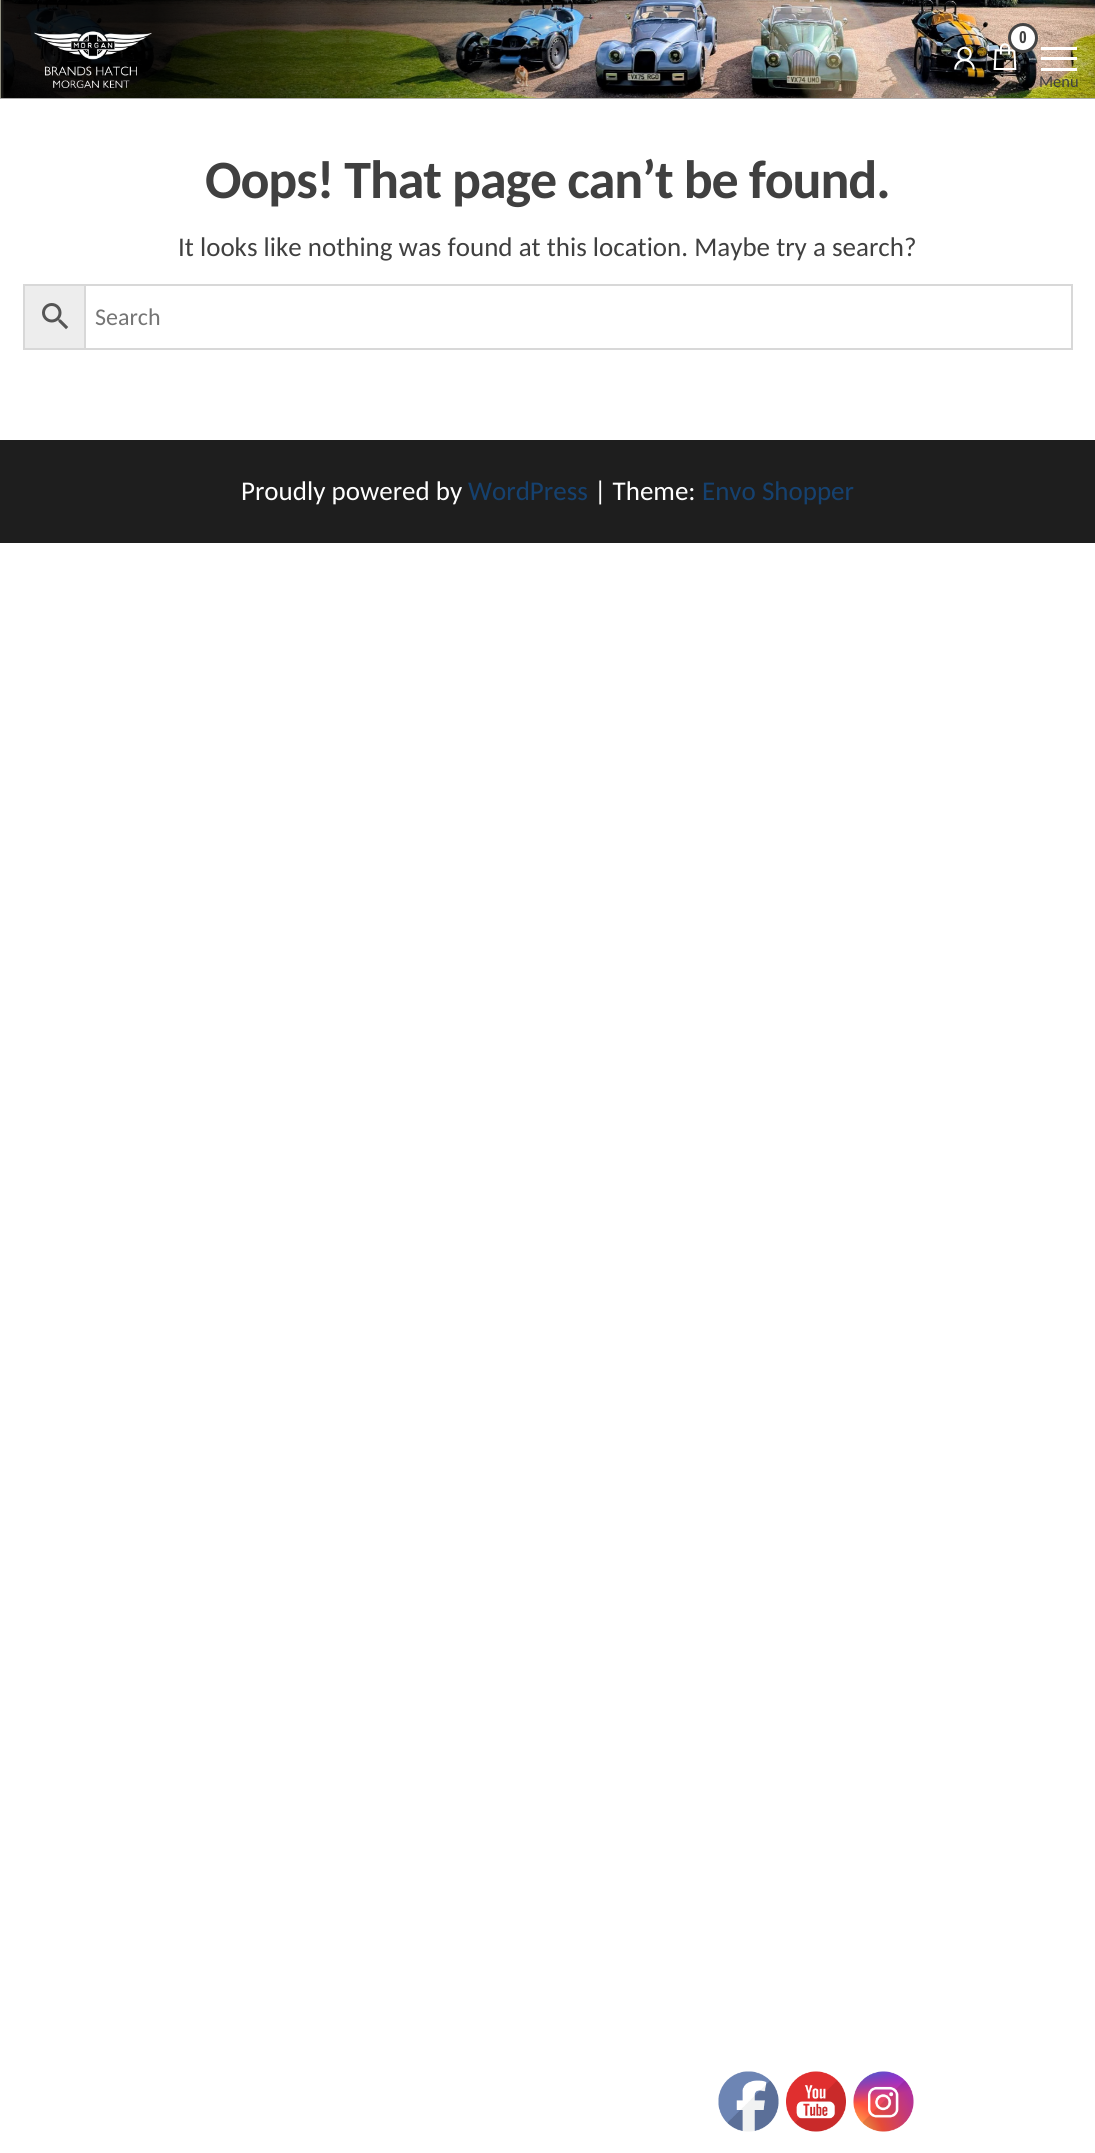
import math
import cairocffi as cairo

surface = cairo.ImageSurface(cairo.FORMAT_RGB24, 1095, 2153)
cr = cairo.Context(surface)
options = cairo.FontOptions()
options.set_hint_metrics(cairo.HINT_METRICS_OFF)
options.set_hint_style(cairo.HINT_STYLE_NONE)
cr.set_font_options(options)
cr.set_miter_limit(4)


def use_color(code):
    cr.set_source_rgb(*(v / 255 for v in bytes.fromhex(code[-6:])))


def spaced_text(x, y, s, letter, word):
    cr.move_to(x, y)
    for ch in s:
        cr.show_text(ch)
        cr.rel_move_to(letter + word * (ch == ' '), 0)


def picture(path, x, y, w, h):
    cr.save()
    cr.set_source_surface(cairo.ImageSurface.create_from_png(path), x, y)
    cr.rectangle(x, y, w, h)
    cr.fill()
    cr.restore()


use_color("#ffffff")
cr.paint()
picture("img1.png", 0, 0, 1095, 98)
use_color("#acacac")
cr.rectangle(0, 98, 1095, 1)
cr.fill()
picture("img2.png", 34, 31, 118, 57)
picture("img3.png", 993, 43, 24, 27)
use_color("#ffffff")
cr.arc(1023, 38, 13.5, 0, 2 * math.pi)
cr.fill_preserve()
use_color("#444444")
cr.set_line_width(3)
cr.stroke()
cr.select_font_face("Open Sans Condensed", cairo.FONT_SLANT_NORMAL, cairo.FONT_WEIGHT_BOLD)
cr.set_font_size(16.5)
use_color("#404040")
cr.move_to(1019, 43)
cr.show_text("0")
picture("img4.png", 954, 46, 21, 24)
use_color("#ffffff")
cr.rectangle(1041, 47, 36, 3)
cr.fill()
cr.rectangle(1041, 57, 36, 3)
cr.fill()
cr.rectangle(1041, 68, 36, 3)
cr.fill()
cr.select_font_face("Carlito")
use_color("#404040")
cr.move_to(1039, 87)
cr.show_text("Menu")
cr.select_font_face("Carlito", cairo.FONT_SLANT_NORMAL, cairo.FONT_WEIGHT_BOLD)
cr.set_font_size(54)
spaced_text(205, 198, "Oops! That page can’t be found.", -1.1, 0)
cr.select_font_face("Carlito")
cr.set_font_size(27)
cr.move_to(178, 256)
cr.show_text("It looks like nothing was found at this location. Maybe try a search?")
use_color("#ededed")
cr.rectangle(24, 285, 61, 64)
cr.fill_preserve()
use_color("#d8d8d8")
cr.set_line_width(2)
cr.stroke()
picture("img5.png", 42, 303, 27, 27)
cr.rectangle(85, 285, 987, 64)
cr.stroke()
cr.set_font_size(24)
use_color("#757575")
cr.move_to(95, 325)
cr.show_text("Search")
use_color("#1e1e1e")
cr.rectangle(0, 440, 1095, 103)
cr.fill()
cr.set_font_size(27)
use_color("#ffffff")
cr.move_to(241, 500)
cr.show_text("Proudly powered by")
use_color("#15416f")
cr.move_to(468, 500)
cr.show_text("WordPress")
use_color("#ffffff")
cr.move_to(594, 500)
cr.show_text("| Theme:")
use_color("#15416f")
cr.move_to(702, 500)
cr.show_text("Envo Shopper")
picture("img6.png", 718, 2071, 61, 61)
picture("img7.png", 786, 2071, 60, 61)
picture("img8.png", 853, 2071, 61, 61)
surface.write_to_png("result.png")
